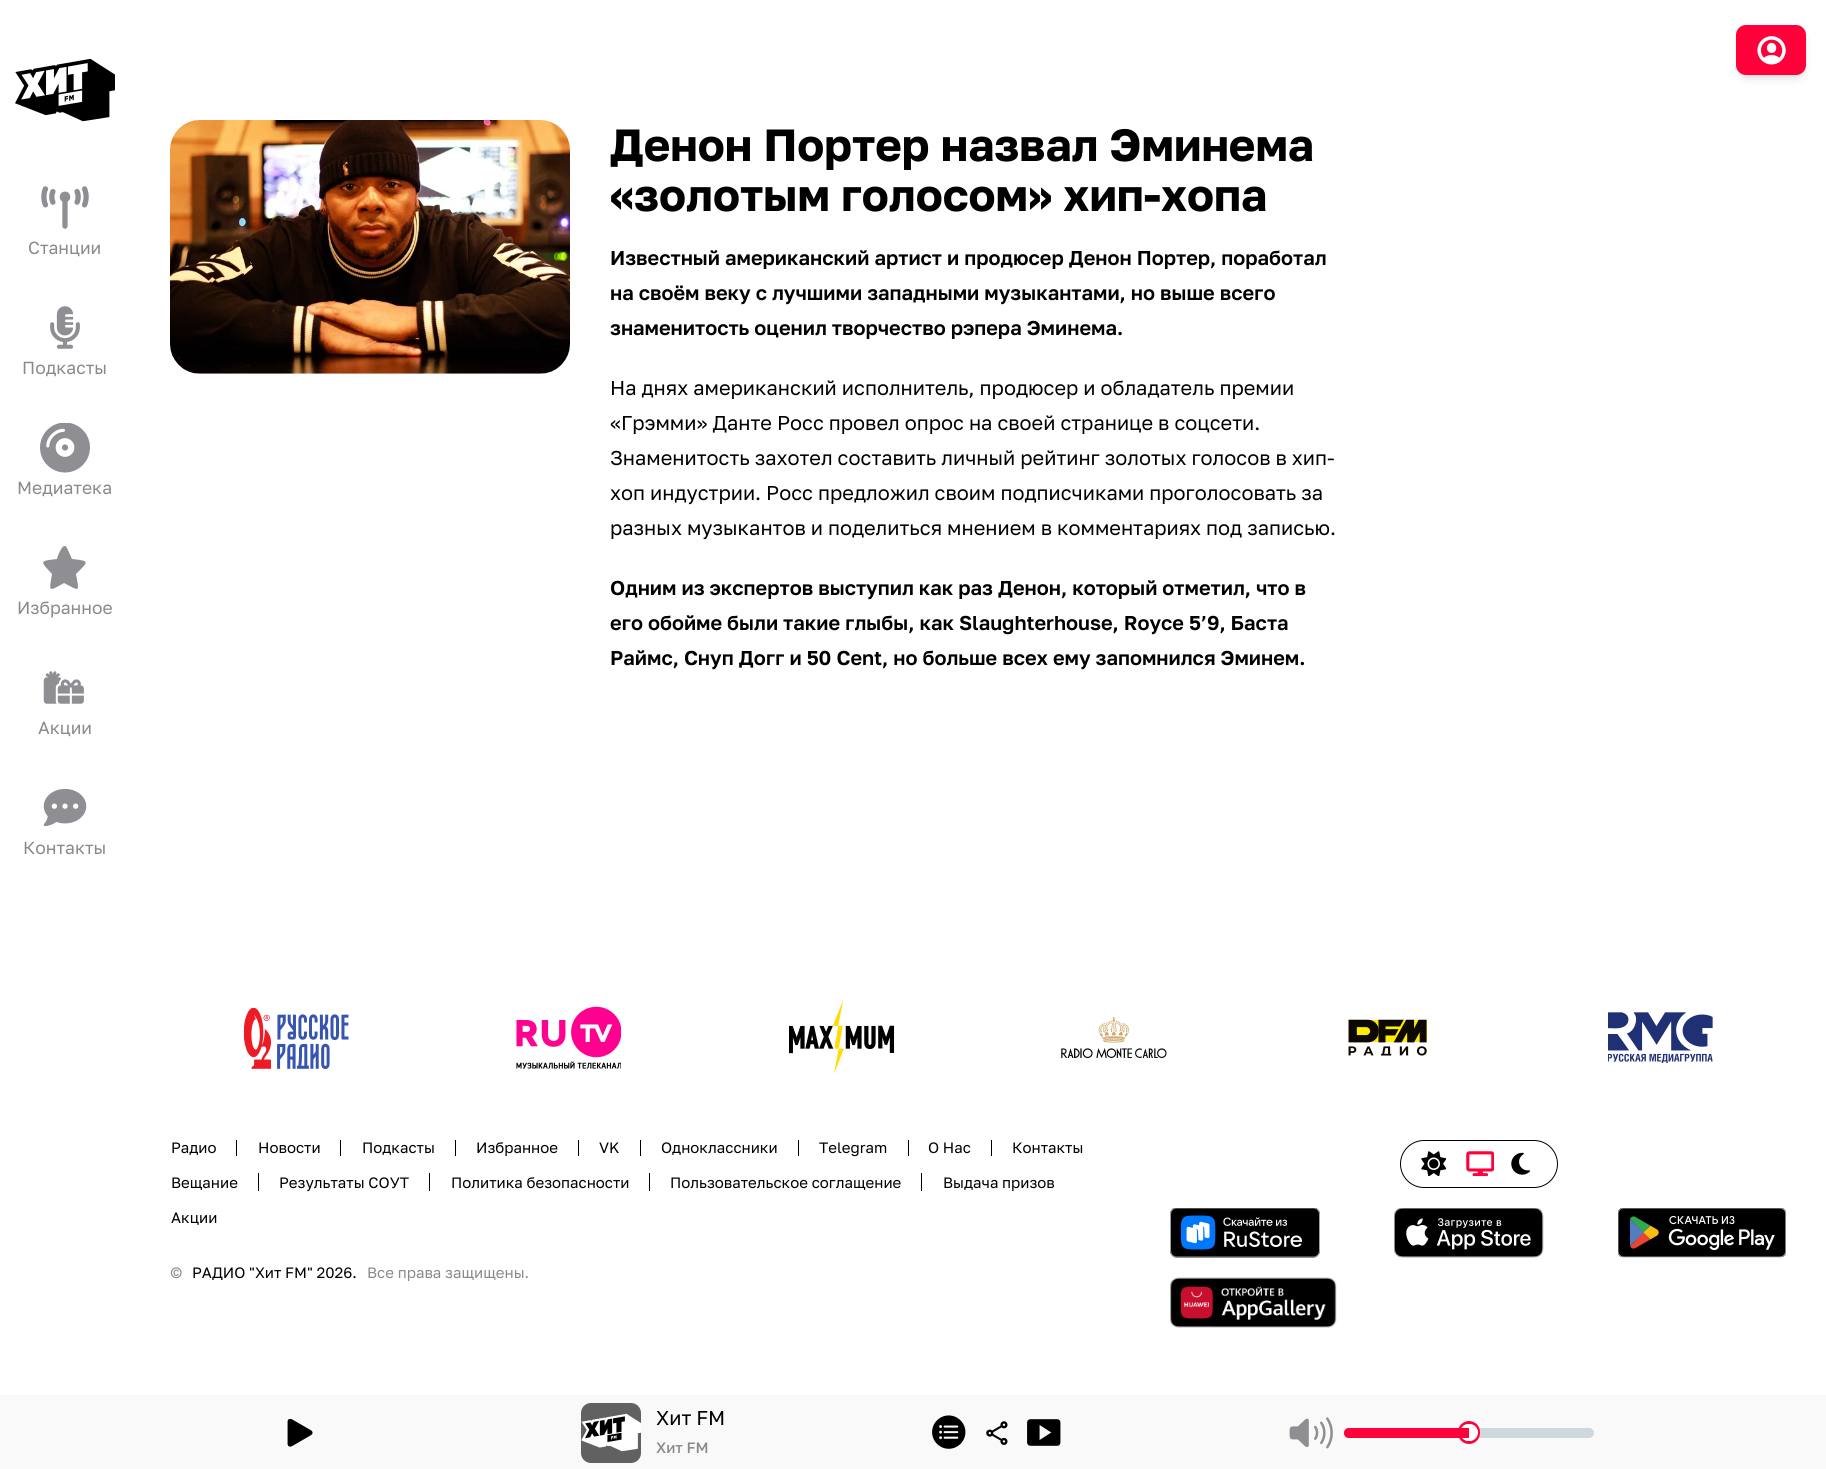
import math
import cairocffi as cairo

surface = cairo.ImageSurface(cairo.FORMAT_RGB24, 1826, 1469)
cr = cairo.Context(surface)
options = cairo.FontOptions()
options.set_hint_metrics(cairo.HINT_METRICS_OFF)
options.set_hint_style(cairo.HINT_STYLE_NONE)
cr.set_font_options(options)
cr.set_miter_limit(4)


def use_color(code):
    cr.set_source_rgb(*(v / 255 for v in bytes.fromhex(code[-6:])))


def round_rect(x, y, w, h, r):
    cr.new_sub_path()
    for i, (u, v) in enumerate([(x + w - r, y + h - r), (x + r, y + h - r), (x + r, y + r), (x + w - r, y + r)]):
        cr.arc(u, v, r, i * math.pi / 2, (i + 1) * math.pi / 2)
    cr.close_path()


def shadow(x, y, w, h, r, blur, alpha):
    cr.push_group_with_content(cairo.CONTENT_ALPHA)
    cr.set_operator(cairo.OPERATOR_SOURCE)
    for i in range(15, -16, -2):
        e = blur * i / 6
        if min(w, h) + 2 * e > 0:
            cr.set_source_rgba(0, 0, 0, alpha * math.erfc((i - 1) / 8.5) / 2)
            round_rect(x - e, y - e, w + 2 * e, h + 2 * e, max(0, min(r + e + blur * .6, min(w, h) / 2 + e)))
            cr.fill()
    cr.mask(cr.pop_group())


def picture(path, x, y, w, h):
    cr.save()
    cr.set_source_surface(cairo.ImageSurface.create_from_png(path), x, y)
    cr.rectangle(x, y, w, h)
    cr.fill()
    cr.restore()


use_color("#ffffff")
cr.paint()
picture("img1.png", 15, 58, 100, 64)
picture("img2.png", 41, 186, 48, 43)
cr.select_font_face("Golos Text")
cr.set_font_size(17.5)
use_color("#8a8a8e")
cr.move_to(28, 254)
cr.show_text("Станции")
picture("img3.png", 50, 306, 30, 43)
cr.move_to(22, 374)
cr.show_text("Подкасты")
picture("img4.png", 40, 423, 50, 50)
cr.move_to(17, 494)
cr.show_text("Медиатека")
use_color("#8e8e93")
cr.new_path()
cr.move_to(67, 548)
cr.curve_to(63, 540, 57, 558, 57, 559)
cr.curve_to(39, 561, 40, 561, 52, 574)
cr.curve_to(49, 592, 48, 592, 64, 583)
cr.curve_to(81, 592, 79, 592, 76, 574)
cr.curve_to(89, 561, 90, 561, 72, 559)
cr.close_path()
cr.fill()
use_color("#8a8a8e")
cr.move_to(17, 614)
cr.show_text("Избранное")
picture("img5.png", 43, 671, 41, 33)
cr.move_to(38, 734)
cr.show_text("Акции")
picture("img6.png", 43, 788, 44, 39)
cr.move_to(23, 854)
cr.show_text("Контакты")
use_color("#000000")
shadow(1739, 30, 65, 45, 8, 2.5, 0.1)
shadow(1738, 31, 67, 48, 9, 4, 0.1)
use_color("#ff003a")
round_rect(1736, 25, 70, 50, 10)
cr.fill()
picture("img7.png", 1757, 36, 29, 29)
picture("img8.png", 170, 120, 400, 254)
cr.select_font_face("Golos Text", cairo.FONT_SLANT_NORMAL, cairo.FONT_WEIGHT_BOLD)
cr.set_font_size(45)
use_color("#000000")
cr.move_to(610, 161)
cr.show_text("Денон Портер назвал Эминема")
cr.move_to(610, 211)
cr.show_text("«золотым голосом» хип-хопа")
cr.select_font_face("Golos Text SemiBold")
cr.set_font_size(20)
cr.move_to(610, 265)
cr.show_text("Известный американский артист и продюсер Денон Портер, поработал")
cr.move_to(610, 300)
cr.show_text("на своём веку с лучшими западными музыкантами, но выше всего")
cr.move_to(610, 335)
cr.show_text("знаменитость оценил творчество рэпера Эминема.")
cr.select_font_face("Golos Text")
cr.move_to(610, 395)
cr.show_text("На днях американский исполнитель, продюсер и обладатель премии")
cr.move_to(610, 430)
cr.show_text("«Грэмми» Данте Росс провел опрос на своей странице в соцсети.")
cr.move_to(610, 465)
cr.show_text("Знаменитость захотел составить личный рейтинг золотых голосов в хип-")
cr.move_to(610, 500)
cr.show_text("хоп индустрии. Росс предложил своим подписчиками проголосовать за")
cr.move_to(610, 535)
cr.show_text("разных музыкантов и поделиться мнением в комментариях под записью.")
cr.select_font_face("Golos Text SemiBold")
cr.move_to(610, 595)
cr.show_text("Одним из экспертов выступил как раз Денон, который отметил, что в")
cr.move_to(610, 630)
cr.show_text("его обойме были такие глыбы, как Slaughterhouse, Royce 5’9, Баста")
cr.move_to(610, 665)
cr.show_text("Раймс, Снуп Догг и 50 Cent, но больше всех ему запомнился Эминем.")
picture("img9.png", 244, 1008, 105, 61)
picture("img10.png", 516, 1006, 105, 63)
picture("img11.png", 789, 1000, 106, 74)
picture("img12.png", 1061, 1017, 106, 41)
picture("img13.png", 1348, 1019, 79, 37)
picture("img14.png", 1608, 1012, 105, 51)
cr.select_font_face("Golos Text")
cr.set_font_size(15)
cr.move_to(171, 1153)
cr.show_text("Радио")
cr.move_to(258, 1153)
cr.show_text("Новости")
cr.rectangle(236, 1140, 1, 16)
cr.fill()
cr.move_to(362, 1153)
cr.show_text("Подкасты")
cr.rectangle(340, 1140, 1, 16)
cr.fill()
cr.move_to(476, 1153)
cr.show_text("Избранное")
cr.rectangle(455, 1140, 1, 16)
cr.fill()
cr.move_to(599, 1153)
cr.show_text("VK")
cr.rectangle(578, 1140, 1, 16)
cr.fill()
cr.move_to(661, 1153)
cr.show_text("Одноклассники")
cr.rectangle(640, 1140, 1, 16)
cr.fill()
cr.move_to(819, 1153)
cr.show_text("Telegram")
cr.rectangle(798, 1140, 1, 16)
cr.fill()
cr.move_to(928, 1153)
cr.show_text("О Нас")
cr.rectangle(908, 1140, 1, 16)
cr.fill()
cr.move_to(1012, 1153)
cr.show_text("Контакты")
cr.rectangle(991, 1140, 1, 16)
cr.fill()
cr.move_to(171, 1188)
cr.show_text("Вещание")
cr.move_to(279, 1188)
cr.show_text("Результаты СОУТ")
cr.rectangle(258, 1173, 1, 18)
cr.fill()
cr.move_to(451, 1188)
cr.show_text("Политика безопасности")
cr.rectangle(429, 1173, 1, 18)
cr.fill()
cr.move_to(670, 1188)
cr.show_text("Пользовательское соглащение")
cr.rectangle(649, 1173, 1, 18)
cr.fill()
cr.move_to(943, 1188)
cr.show_text("Выдача призов")
cr.rectangle(921, 1173, 1, 18)
cr.fill()
cr.move_to(171, 1223)
cr.show_text("Акции")
use_color("#8a8a8e")
cr.move_to(170, 1278)
cr.show_text("©")
use_color("#000000")
cr.move_to(192, 1278)
cr.show_text("РАДИО \"Хит FM\" 2026.")
use_color("#8a8a8e")
cr.move_to(367, 1278)
cr.show_text("Все права защищены.")
round_rect(1400.5, 1140.5, 157, 47, 23.5)
use_color("#000000")
cr.set_line_width(1)
cr.stroke()
picture("img15.png", 1421, 1151, 25, 25)
picture("img16.png", 1466, 1151, 28, 25)
picture("img17.png", 1511, 1152, 19, 23)
picture("img18.png", 1170, 1208, 150, 50)
picture("img19.png", 1394, 1208, 150, 50)
picture("img20.png", 1618, 1208, 168, 50)
picture("img21.png", 1170, 1277, 167, 51)
use_color("#f9f9f9")
cr.rectangle(0, 1395, 1826, 74)
cr.fill()
picture("img22.png", 287, 1419, 26, 28)
use_color("#616161")
round_rect(581, 1403, 60, 60, 10)
cr.fill()
picture("img23.png", 581, 1413, 60, 39)
cr.set_font_size(20)
use_color("#000000")
cr.move_to(656, 1425)
cr.show_text("Хит FM")
cr.select_font_face("Golos Text Medium")
cr.set_font_size(15)
use_color("#8a8a8e")
cr.move_to(656, 1453)
cr.show_text("Хит FM")
picture("img24.png", 932, 1415, 34, 34)
picture("img25.png", 986, 1421, 22, 24)
picture("img26.png", 1027, 1419, 34, 27)
picture("img27.png", 1289, 1417, 44, 32)
use_color("#cfd8dc")
round_rect(1344, 1428, 250, 10, 5)
cr.fill()
round_rect(1459.5, 1422.5, 19, 20, 9.5)
use_color("#ff003a")
cr.set_line_width(3)
cr.stroke()
use_color("#ffffff")
round_rect(1460, 1424, 18, 17, 8.5)
cr.fill()
use_color("#ff003a")
cr.new_path()
cr.move_to(1349, 1428)
cr.line_to(1469, 1428)
cr.line_to(1469, 1438)
cr.line_to(1349, 1438)
cr.curve_to(1346, 1438, 1344, 1436, 1344, 1433)
cr.curve_to(1344, 1430, 1346, 1428, 1349, 1428)
cr.close_path()
cr.fill()
surface.write_to_png("result.png")
